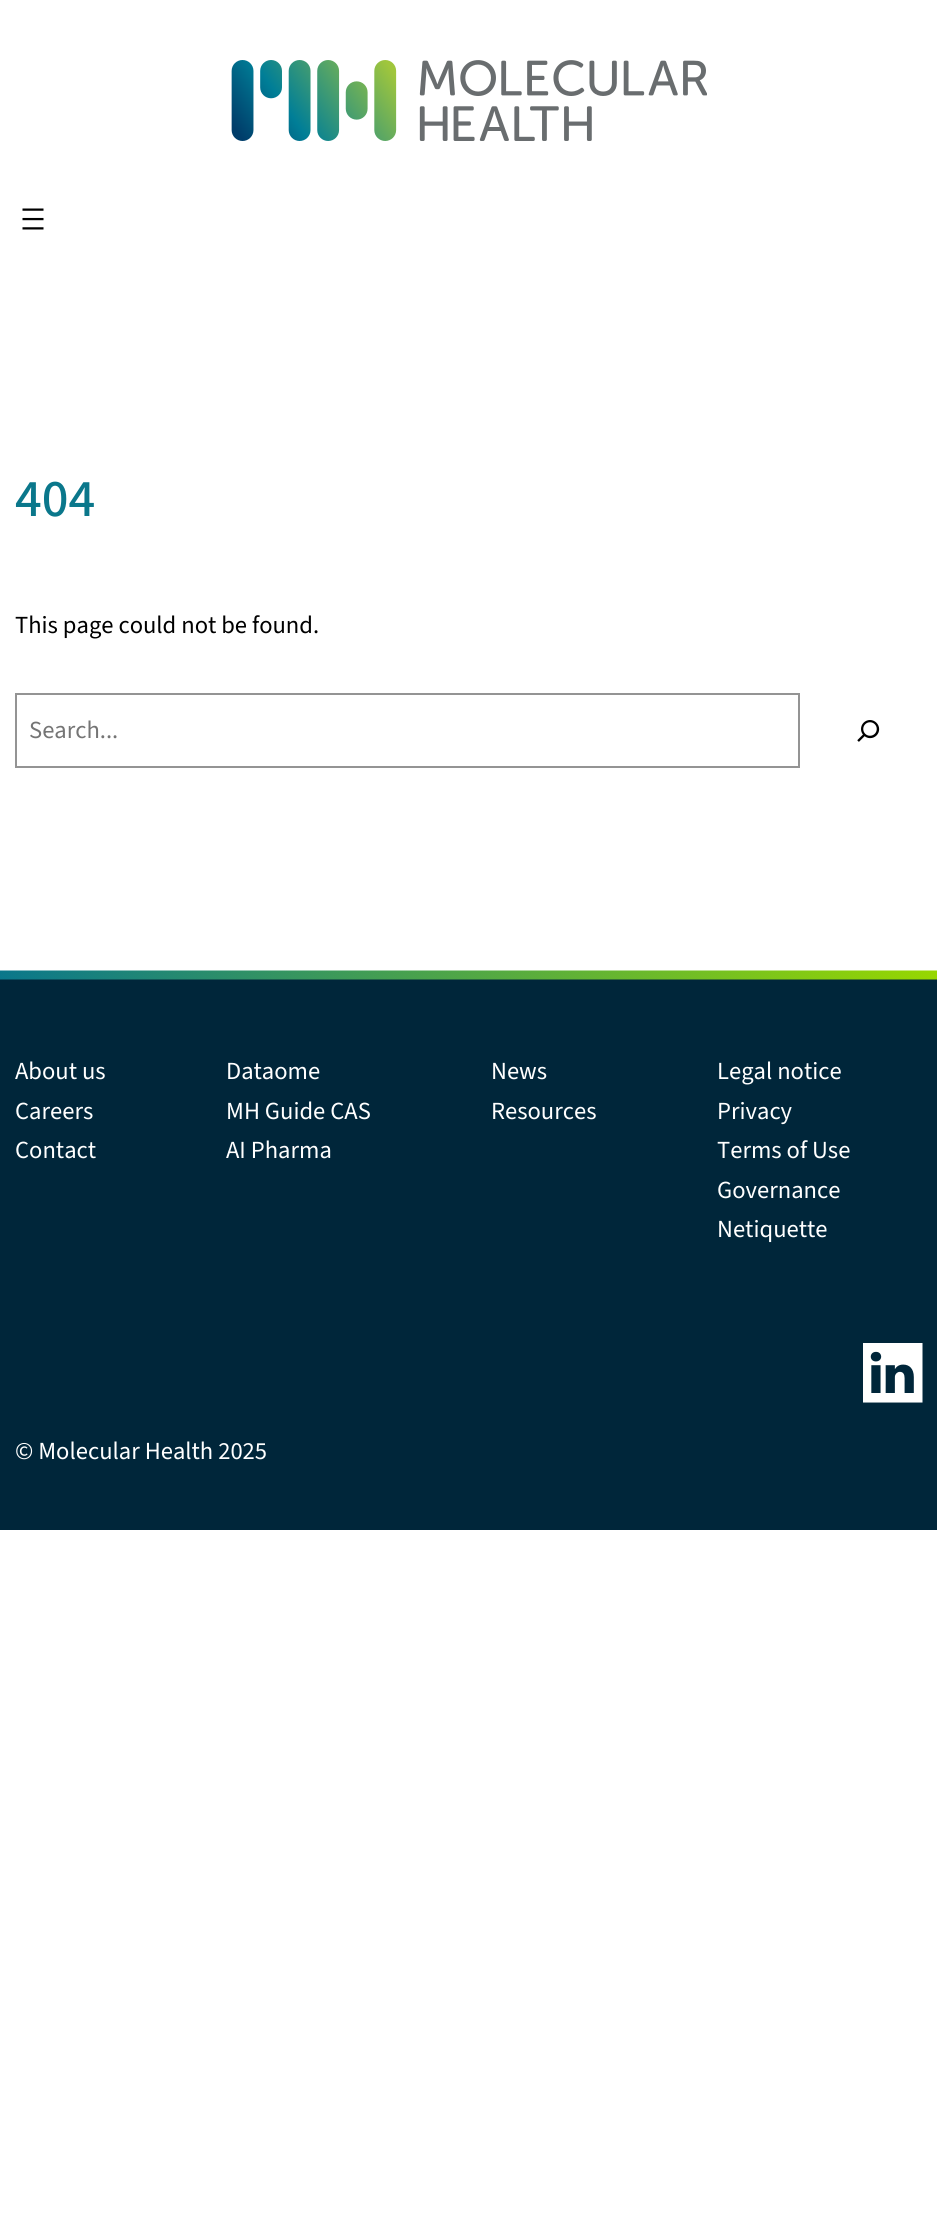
import math
import cairocffi as cairo

surface = cairo.ImageSurface(cairo.FORMAT_RGB24, 937, 2238)
cr = cairo.Context(surface)
options = cairo.FontOptions()
options.set_hint_metrics(cairo.HINT_METRICS_OFF)
options.set_hint_style(cairo.HINT_STYLE_NONE)
cr.set_font_options(options)
cr.set_miter_limit(4)


def use_color(code):
    cr.set_source_rgb(*(v / 255 for v in bytes.fromhex(code[-6:])))


def picture(path, x, y, w, h):
    cr.save()
    cr.set_source_surface(cairo.ImageSurface.create_from_png(path), x, y)
    cr.rectangle(x, y, w, h)
    cr.fill()
    cr.restore()


use_color("#ffffff")
cr.paint()
picture("img1.png", 231, 60, 476, 81)
picture("img2.png", 22, 208, 22, 22)
cr.select_font_face("Source Sans 3 Medium")
cr.set_font_size(53)
use_color("#0a778b")
cr.move_to(15, 516)
cr.show_text("404")
cr.select_font_face("Source Sans 3")
cr.set_font_size(24.6)
use_color("#000000")
cr.move_to(15, 633)
cr.show_text("This page could not be found.")
cr.rectangle(16, 694, 783, 73)
use_color("#949494")
cr.stroke()
use_color("#757575")
cr.move_to(29, 738)
cr.show_text("Search...")
picture("img3.png", 857, 720, 23, 22)
use_color("#00263a")
cr.rectangle(0, 979, 937, 551)
cr.fill()
picture("img4.png", 0, 970, 937, 10)
use_color("#ffffff")
cr.move_to(15, 1079)
cr.show_text("About us")
cr.move_to(15, 1119)
cr.show_text("Careers")
cr.move_to(15, 1158)
cr.show_text("Contact")
cr.move_to(226, 1079)
cr.show_text("Dataome")
cr.move_to(226, 1119)
cr.show_text("MH Guide CAS")
cr.move_to(226, 1158)
cr.show_text("AI Pharma")
cr.move_to(491, 1079)
cr.show_text("News")
cr.move_to(491, 1119)
cr.show_text("Resources")
cr.move_to(717, 1079)
cr.show_text("Legal notice")
cr.move_to(717, 1119)
cr.show_text("Privacy")
cr.move_to(717, 1158)
cr.show_text("Terms of Use")
cr.move_to(717, 1198)
cr.show_text("Governance")
cr.move_to(717, 1237)
cr.show_text("Netiquette")
picture("img5.png", 863, 1343, 60, 60)
cr.move_to(15, 1459)
cr.show_text("© Molecular Health 2025")
surface.write_to_png("result.png")
